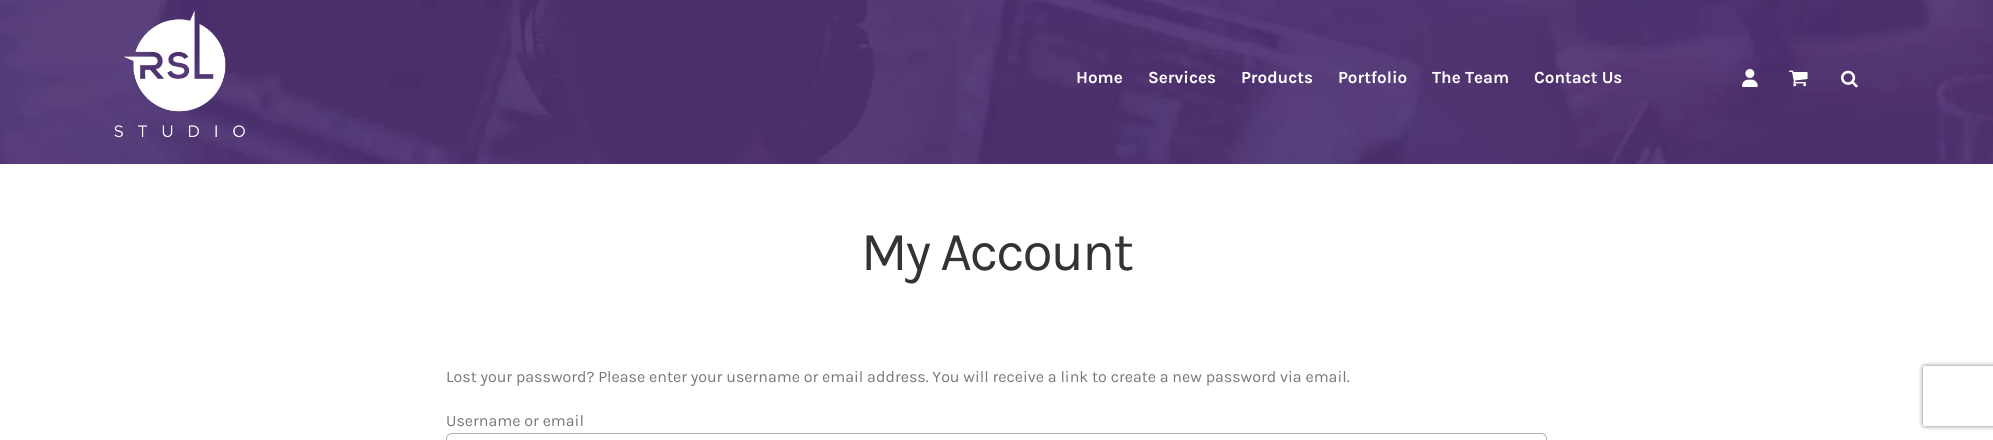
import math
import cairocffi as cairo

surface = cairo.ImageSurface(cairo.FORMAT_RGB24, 1993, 440)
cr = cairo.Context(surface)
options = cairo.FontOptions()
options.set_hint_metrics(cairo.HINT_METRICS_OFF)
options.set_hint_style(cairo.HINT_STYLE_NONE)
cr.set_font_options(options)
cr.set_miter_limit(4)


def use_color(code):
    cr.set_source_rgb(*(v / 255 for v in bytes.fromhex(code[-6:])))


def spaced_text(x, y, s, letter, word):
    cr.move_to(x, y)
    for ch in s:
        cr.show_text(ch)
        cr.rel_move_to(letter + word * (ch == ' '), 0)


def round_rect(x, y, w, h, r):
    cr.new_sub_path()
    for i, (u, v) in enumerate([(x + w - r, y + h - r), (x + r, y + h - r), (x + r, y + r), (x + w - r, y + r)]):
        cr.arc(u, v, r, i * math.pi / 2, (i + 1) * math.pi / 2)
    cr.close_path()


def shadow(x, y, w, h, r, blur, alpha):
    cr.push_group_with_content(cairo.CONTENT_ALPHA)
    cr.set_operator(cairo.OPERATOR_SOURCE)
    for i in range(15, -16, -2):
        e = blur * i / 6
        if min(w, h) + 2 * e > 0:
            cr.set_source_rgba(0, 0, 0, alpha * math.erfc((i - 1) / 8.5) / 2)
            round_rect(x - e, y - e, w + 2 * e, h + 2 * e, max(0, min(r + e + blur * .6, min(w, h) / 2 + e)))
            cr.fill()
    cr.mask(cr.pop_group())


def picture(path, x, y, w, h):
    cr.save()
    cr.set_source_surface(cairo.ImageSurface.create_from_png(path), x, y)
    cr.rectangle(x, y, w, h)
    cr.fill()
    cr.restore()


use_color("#ffffff")
cr.paint()
picture("img1.png", 0, 0, 1993, 164)
picture("img2.png", 114, 10, 131, 128)
cr.select_font_face("Karla", cairo.FONT_SLANT_NORMAL, cairo.FONT_WEIGHT_BOLD)
cr.set_font_size(17)
use_color("#ffffff")
cr.move_to(1076, 83)
cr.show_text("Home")
cr.move_to(1148, 83)
cr.show_text("Services")
cr.move_to(1241, 83)
cr.show_text("Products")
cr.move_to(1338, 83)
cr.show_text("Portfolio")
cr.move_to(1432, 83)
cr.show_text("The Team")
cr.move_to(1534, 83)
cr.show_text("Contact Us")
picture("img3.png", 1742, 69, 16, 18)
picture("img4.png", 1789, 70, 19, 17)
picture("img5.png", 1841, 70, 17, 18)
cr.select_font_face("Karla")
cr.set_font_size(55)
use_color("#333333")
spaced_text(861, 270, "My Account", -2, 0)
cr.set_font_size(16)
use_color("#777777")
cr.move_to(446, 382)
cr.show_text("Lost your password? Please enter your username or email address. You will receive a link to create a new password via email.")
cr.move_to(446, 426)
cr.show_text("Username or email")
round_rect(446.5, 433.5, 1100, 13, 5.5)
use_color("#b0b0b0")
cr.set_line_width(1)
cr.stroke()
cr.save()
cr.set_fill_rule(cairo.FILL_RULE_EVEN_ODD)
cr.new_path()
cr.move_to(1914, 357)
cr.line_to(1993, 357)
cr.line_to(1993, 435)
cr.line_to(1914, 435)
cr.close_path()
cr.move_to(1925, 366)
cr.line_to(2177, 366)
cr.curve_to(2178, 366, 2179, 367, 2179, 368)
cr.line_to(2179, 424)
cr.curve_to(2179, 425, 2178, 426, 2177, 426)
cr.line_to(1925, 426)
cr.curve_to(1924, 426, 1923, 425, 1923, 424)
cr.line_to(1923, 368)
cr.curve_to(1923, 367, 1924, 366, 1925, 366)
cr.close_path()
cr.clip()
use_color("#808080")
shadow(1923, 366, 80, 60, 2, 2.5, 1)
cr.restore()
surface.write_to_png("result.png")
